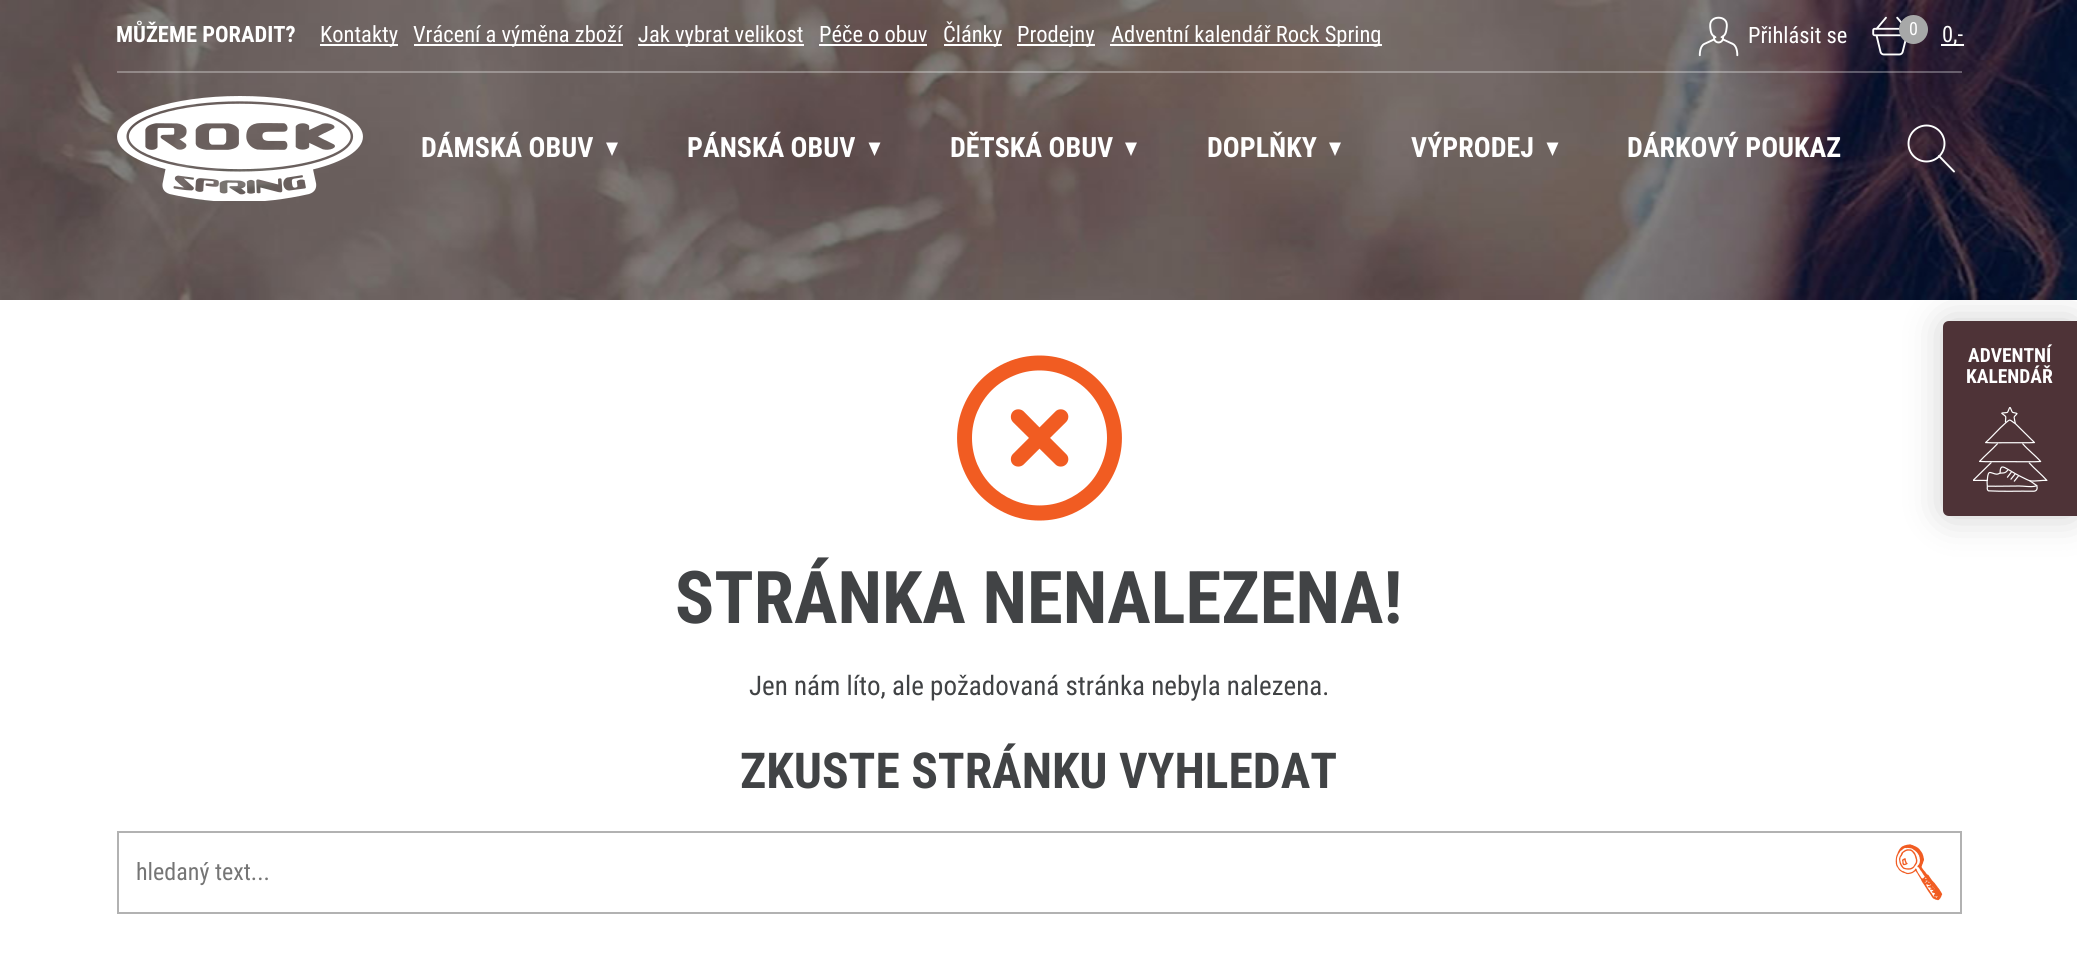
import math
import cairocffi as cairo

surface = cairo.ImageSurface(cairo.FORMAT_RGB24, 2077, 955)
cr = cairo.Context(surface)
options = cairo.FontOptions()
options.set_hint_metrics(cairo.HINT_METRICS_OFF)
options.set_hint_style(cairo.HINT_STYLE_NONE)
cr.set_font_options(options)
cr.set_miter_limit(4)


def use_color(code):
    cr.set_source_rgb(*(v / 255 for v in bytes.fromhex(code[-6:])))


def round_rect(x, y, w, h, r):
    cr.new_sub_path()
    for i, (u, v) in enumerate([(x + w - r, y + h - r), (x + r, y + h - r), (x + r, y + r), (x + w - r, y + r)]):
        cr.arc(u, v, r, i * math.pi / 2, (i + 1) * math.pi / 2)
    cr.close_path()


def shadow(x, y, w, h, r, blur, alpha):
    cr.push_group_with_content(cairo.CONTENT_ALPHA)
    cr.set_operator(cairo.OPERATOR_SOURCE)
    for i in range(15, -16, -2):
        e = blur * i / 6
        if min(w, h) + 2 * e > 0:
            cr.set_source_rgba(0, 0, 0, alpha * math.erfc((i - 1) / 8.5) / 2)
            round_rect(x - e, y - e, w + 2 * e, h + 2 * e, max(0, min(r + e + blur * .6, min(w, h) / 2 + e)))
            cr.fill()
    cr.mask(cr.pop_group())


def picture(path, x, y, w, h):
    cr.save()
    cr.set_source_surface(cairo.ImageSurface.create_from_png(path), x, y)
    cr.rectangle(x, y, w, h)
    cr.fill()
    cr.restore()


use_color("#ffffff")
cr.paint()
picture("img4.png", 0, 0, 2077, 300)
cr.set_source_rgba(1, 1, 1, 0.3)
cr.rectangle(117, 71, 1845, 2)
cr.fill()
cr.select_font_face("Roboto Condensed", cairo.FONT_SLANT_NORMAL, cairo.FONT_WEIGHT_BOLD)
cr.set_font_size(22.5)
use_color("#ffffff")
cr.move_to(116, 42)
cr.show_text("MŮŽEME PORADIT?")
cr.rectangle(320, 44, 78, 2)
cr.fill()
cr.select_font_face("Roboto Condensed")
cr.move_to(320, 42)
cr.show_text("Kontakty")
cr.rectangle(414, 44, 209, 2)
cr.fill()
cr.move_to(413, 42)
cr.show_text("Vrácení a výměna zboží")
cr.rectangle(638, 44, 166, 2)
cr.fill()
cr.move_to(638, 42)
cr.show_text("Jak vybrat velikost")
cr.move_to(819, 42)
cr.show_text("Péče o obuv")
cr.rectangle(819, 44, 108, 2)
cr.fill()
cr.rectangle(944, 44, 58, 2)
cr.fill()
cr.move_to(943, 42)
cr.show_text("Články")
cr.rectangle(1017, 44, 78, 2)
cr.fill()
cr.move_to(1017, 42)
cr.show_text("Prodejny")
cr.rectangle(1110, 44, 272, 2)
cr.fill()
cr.move_to(1111, 42)
cr.show_text("Adventní kalendář Rock Spring")
picture("img1.png", 1698, 16, 41, 41)
cr.move_to(1748, 43)
cr.show_text("Přihlásit se")
picture("img2.png", 1872, 16, 35, 40)
use_color("#a7a8a8")
cr.arc(1913.5, 29.5, 14.5, 0, 2 * math.pi)
cr.fill()
cr.set_font_size(18)
use_color("#ffffff")
cr.move_to(1909, 35)
cr.show_text("0")
cr.rectangle(1941, 44, 23, 2)
cr.fill()
cr.set_font_size(22.5)
cr.move_to(1942, 42)
cr.show_text("0,-")
picture("img3.png", 117, 96, 246, 105)
cr.select_font_face("Roboto Condensed", cairo.FONT_SLANT_NORMAL, cairo.FONT_WEIGHT_BOLD)
cr.set_font_size(28)
cr.move_to(421, 157)
cr.show_text("DÁMSKÁ OBUV")
cr.new_path()
cr.move_to(606, 142.5)
cr.line_to(618, 142.5)
cr.line_to(612, 156)
cr.close_path()
cr.fill()
cr.move_to(687, 157)
cr.show_text("PÁNSKÁ OBUV")
cr.new_path()
cr.move_to(868.5, 142.5)
cr.line_to(880.5, 142.5)
cr.line_to(874.5, 156)
cr.close_path()
cr.fill()
cr.move_to(950, 157)
cr.show_text("DĚTSKÁ OBUV")
cr.new_path()
cr.move_to(1125, 142.5)
cr.line_to(1137, 142.5)
cr.line_to(1131, 156)
cr.close_path()
cr.fill()
cr.move_to(1207, 157)
cr.show_text("DOPLŇKY")
cr.new_path()
cr.move_to(1329, 142.5)
cr.line_to(1341, 142.5)
cr.line_to(1335, 156)
cr.close_path()
cr.fill()
cr.move_to(1411, 157)
cr.show_text("VÝPRODEJ")
cr.new_path()
cr.move_to(1546.5, 142.5)
cr.line_to(1558.5, 142.5)
cr.line_to(1552.5, 156)
cr.close_path()
cr.fill()
cr.move_to(1627, 157)
cr.show_text("DÁRKOVÝ POUKAZ")
cr.new_path()
cr.arc(1926.5, 143.5, 18, 0, 2 * math.pi)
cr.set_line_width(1.9)
cr.stroke()
cr.new_path()
cr.move_to(1954, 171.5)
cr.line_to(1939, 156)
cr.set_line_cap(cairo.LINE_CAP_ROUND)
cr.set_line_join(cairo.LINE_JOIN_ROUND)
cr.stroke()
use_color("#000000")
shadow(1943, 321, 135, 195, 6, 19, 0.2)
use_color("#4e3337")
cr.new_path()
cr.move_to(1949, 321)
cr.line_to(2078, 321)
cr.line_to(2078, 516)
cr.line_to(1949, 516)
cr.curve_to(1945.5, 516, 1943, 513.5, 1943, 510)
cr.line_to(1943, 327)
cr.curve_to(1943, 323.5, 1945.5, 321, 1949, 321)
cr.close_path()
cr.fill()
cr.set_font_size(19.5)
use_color("#ffffff")
cr.move_to(1968, 362)
cr.show_text("ADVENTNÍ")
cr.move_to(1966, 383)
cr.show_text("KALENDÁŘ")
picture("img5.png", 1973, 407, 75, 85)
picture("img6.png", 957, 355, 165, 166)
cr.set_font_size(72.75)
use_color("#414345")
cr.move_to(675, 623)
cr.show_text("STRÁNKA NENALEZENA!")
cr.select_font_face("Roboto Condensed")
cr.set_font_size(27)
cr.move_to(749, 695)
cr.show_text("Jen nám líto, ale požadovaná stránka nebyla nalezena.")
cr.select_font_face("Roboto Condensed", cairo.FONT_SLANT_NORMAL, cairo.FONT_WEIGHT_BOLD)
cr.set_font_size(49.5)
cr.move_to(740, 788)
cr.show_text("ZKUSTE STRÁNKU VYHLEDAT")
cr.rectangle(118, 832, 1843, 81)
use_color("#b2b2b2")
cr.set_line_width(2)
cr.set_line_cap(cairo.LINE_CAP_BUTT)
cr.set_line_join(cairo.LINE_JOIN_MITER)
cr.stroke()
cr.select_font_face("Roboto Condensed")
cr.set_font_size(24)
use_color("#757575")
cr.move_to(136, 880)
cr.show_text("hledaný text...")
picture("img7.png", 1895, 844, 48, 57)
surface.write_to_png("result.png")
